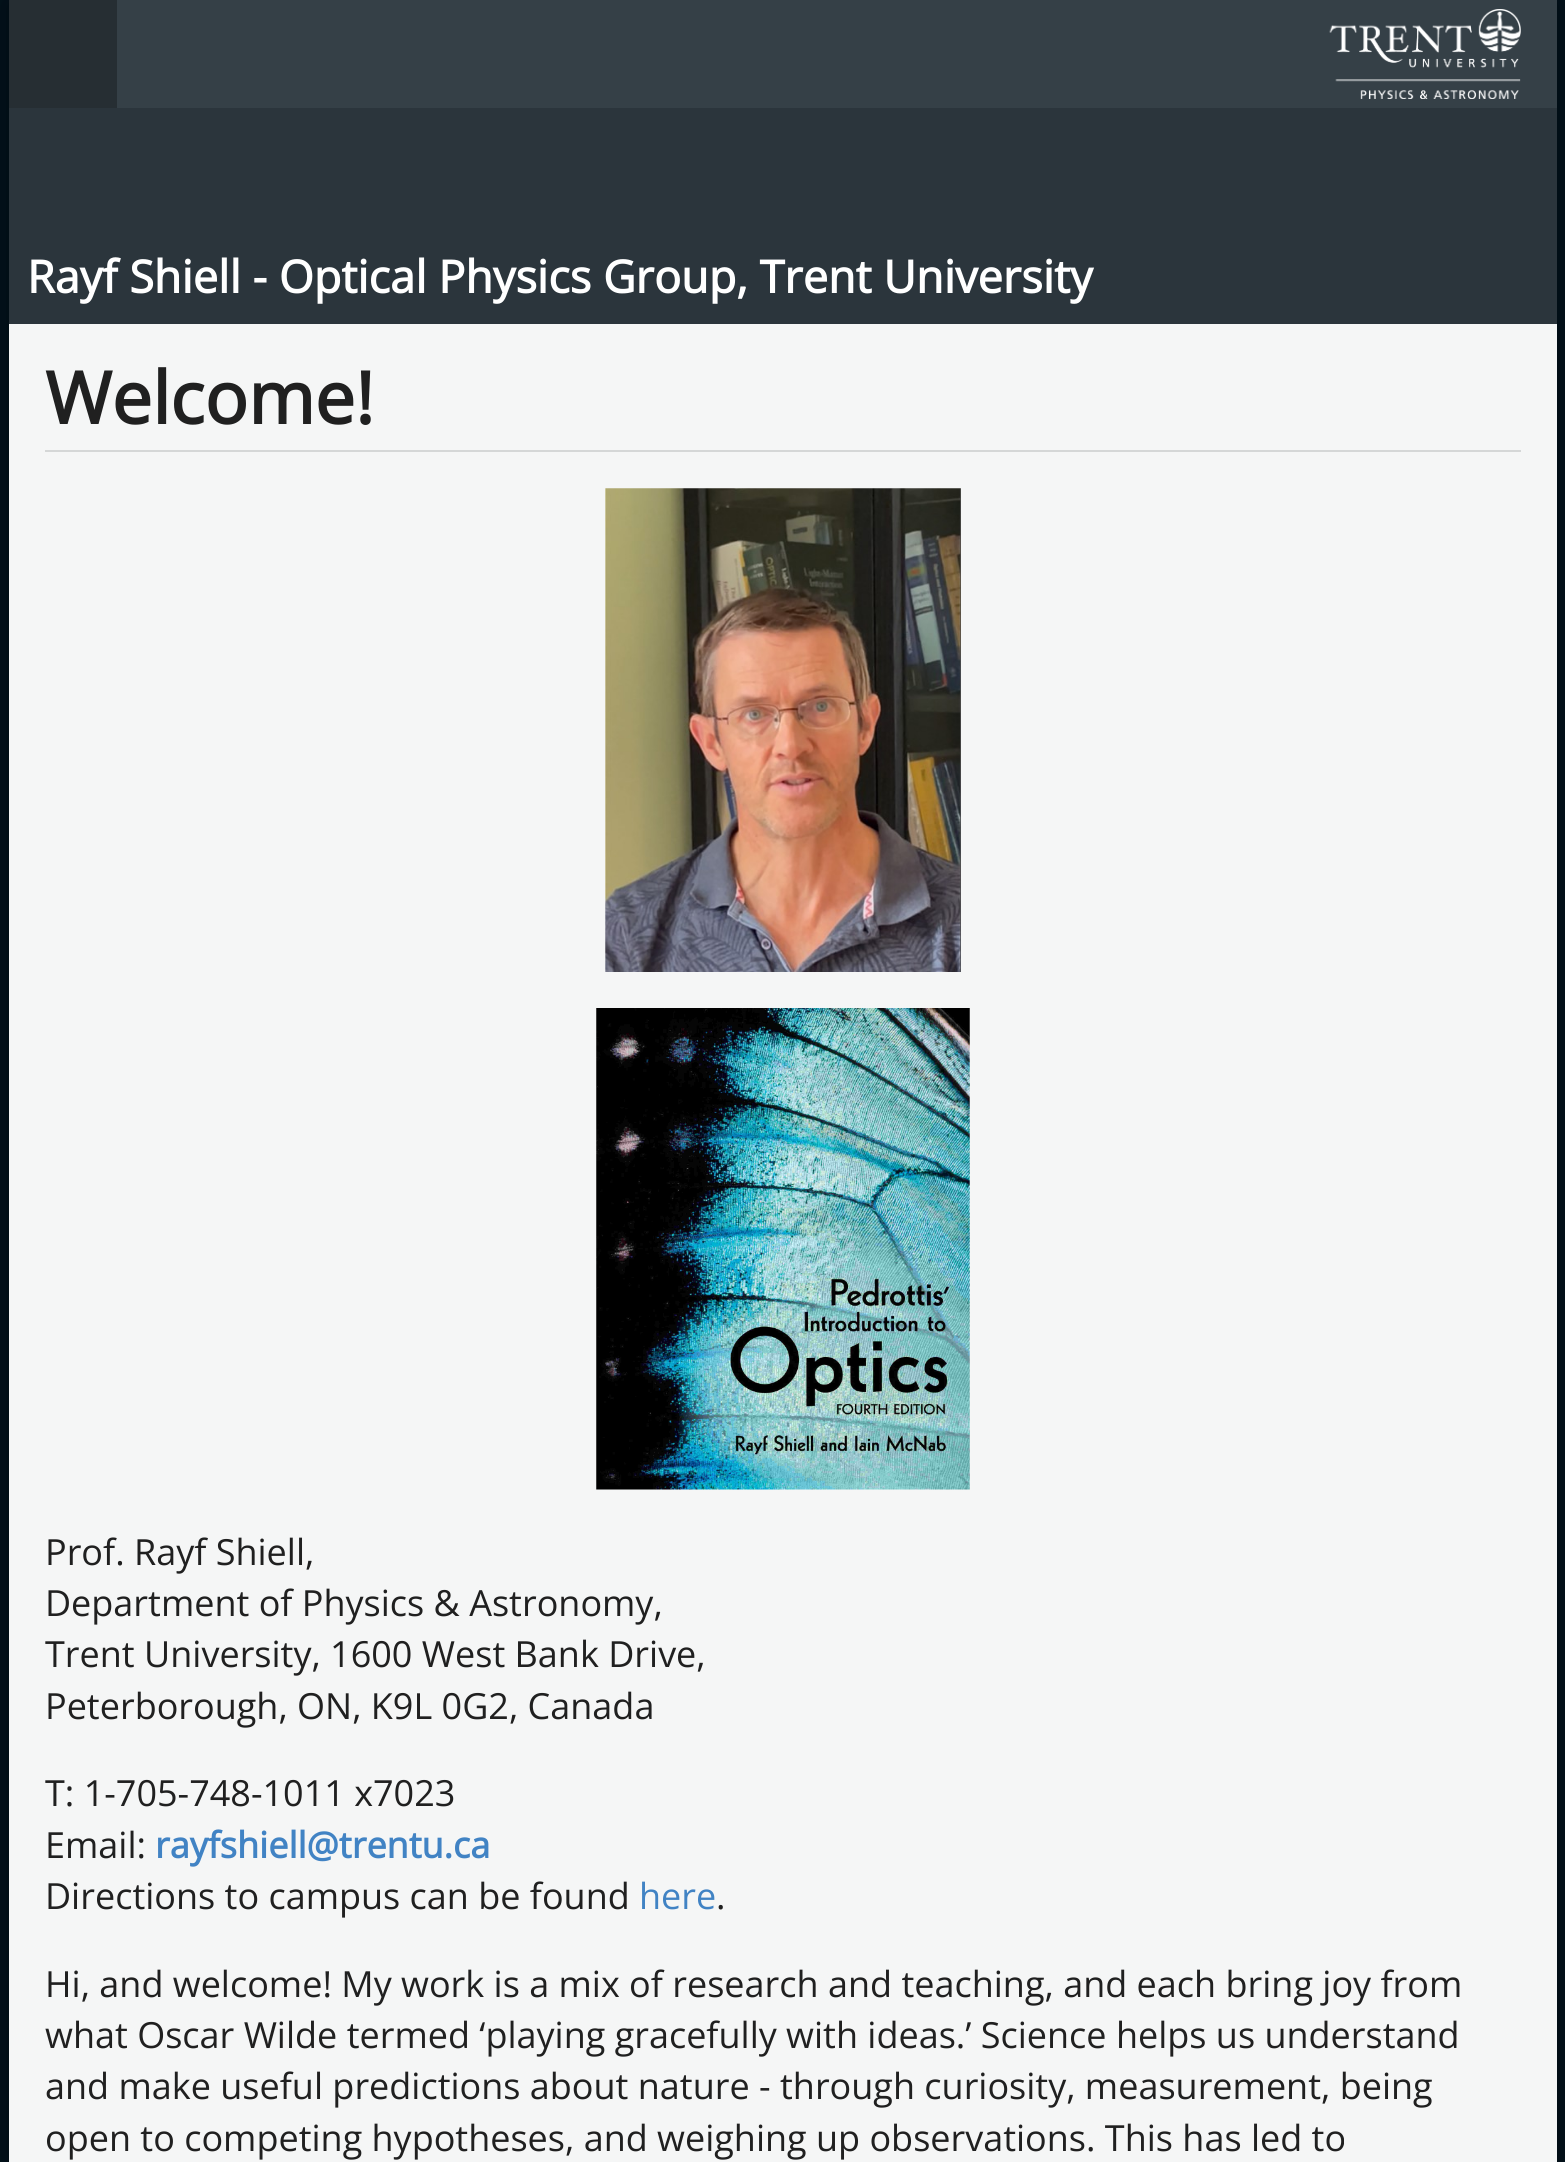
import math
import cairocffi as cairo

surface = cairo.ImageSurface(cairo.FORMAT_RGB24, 1565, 2162)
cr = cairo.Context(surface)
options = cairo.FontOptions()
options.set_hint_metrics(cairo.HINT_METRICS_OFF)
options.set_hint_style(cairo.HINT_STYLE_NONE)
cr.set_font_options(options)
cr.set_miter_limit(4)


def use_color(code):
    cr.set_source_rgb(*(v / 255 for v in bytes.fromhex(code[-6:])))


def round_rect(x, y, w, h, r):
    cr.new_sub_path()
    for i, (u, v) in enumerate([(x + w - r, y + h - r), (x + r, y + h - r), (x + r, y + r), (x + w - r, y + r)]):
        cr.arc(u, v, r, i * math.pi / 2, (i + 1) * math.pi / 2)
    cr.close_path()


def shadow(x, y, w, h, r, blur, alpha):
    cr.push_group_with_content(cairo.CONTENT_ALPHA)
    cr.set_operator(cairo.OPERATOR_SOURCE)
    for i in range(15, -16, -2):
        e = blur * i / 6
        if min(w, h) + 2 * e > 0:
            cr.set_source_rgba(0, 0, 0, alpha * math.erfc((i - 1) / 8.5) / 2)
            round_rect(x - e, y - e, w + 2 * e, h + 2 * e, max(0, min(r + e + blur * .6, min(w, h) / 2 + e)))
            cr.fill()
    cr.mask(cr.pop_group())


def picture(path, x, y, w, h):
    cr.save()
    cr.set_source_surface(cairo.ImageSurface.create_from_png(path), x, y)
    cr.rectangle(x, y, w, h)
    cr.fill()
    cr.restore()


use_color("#02131d")
cr.paint()
use_color("#000000")
shadow(9, 0, 1548, 2162, 0, 18, 0.5)
use_color("#2b353c")
cr.rectangle(9, 108, 1548, 216)
cr.fill()
use_color("#262e33")
cr.rectangle(9, 0, 108, 108)
cr.fill()
use_color("#354047")
cr.rectangle(117, 0, 1440, 108)
cr.fill()
picture("img1.png", 1329, 9, 192, 90)
cr.select_font_face("Open Sans", cairo.FONT_SLANT_NORMAL, cairo.FONT_WEIGHT_BOLD)
cr.set_font_size(45)
use_color("#ffffff")
cr.move_to(27, 293)
cr.show_text("Rayf Shiell - Optical Physics Group, Trent University")
use_color("#f5f6f6")
cr.rectangle(9, 324, 1548, 1838)
cr.fill()
use_color("#d5d7d7")
cr.rectangle(45, 450, 1476, 2)
cr.fill()
cr.set_font_size(72)
use_color("#202020")
cr.move_to(45, 424)
cr.show_text("Welcome!")
picture("img2.png", 605, 488, 356, 484)
picture("img3.png", 596, 1008, 374, 482)
cr.select_font_face("Open Sans")
cr.set_font_size(36)
cr.move_to(45, 1565)
cr.show_text("Prof. Rayf Shiell,")
cr.move_to(45, 1616)
cr.show_text("Department of Physics & Astronomy,")
cr.move_to(45, 1667)
cr.show_text("Trent University, 1600 West Bank Drive,")
cr.move_to(45, 1719)
cr.show_text("Peterborough, ON, K9L 0G2, Canada")
cr.move_to(45, 1806)
cr.show_text("T: 1-705-748-1011 x7023")
cr.move_to(45, 1858)
cr.show_text("Email:")
cr.select_font_face("Open Sans", cairo.FONT_SLANT_NORMAL, cairo.FONT_WEIGHT_BOLD)
use_color("#4183c4")
cr.move_to(155, 1858)
cr.show_text("rayfshiell@trentu.ca")
cr.select_font_face("Open Sans")
use_color("#202020")
cr.move_to(45, 1909)
cr.show_text("Directions to campus can be found")
use_color("#4183c4")
cr.move_to(639, 1909)
cr.show_text("here")
use_color("#202020")
cr.move_to(716, 1909)
cr.show_text(".")
cr.move_to(45, 1997)
cr.show_text("Hi, and welcome! My work is a mix of research and teaching, and each bring joy from")
cr.move_to(45, 2048)
cr.show_text("what Oscar Wilde termed ‘playing gracefully with ideas.’ Science helps us understand")
cr.move_to(45, 2099)
cr.show_text("and make useful predictions about nature - through curiosity, measurement, being")
cr.move_to(45, 2151)
cr.show_text("open to competing hypotheses, and weighing up observations. This has led to")
surface.write_to_png("result.png")
